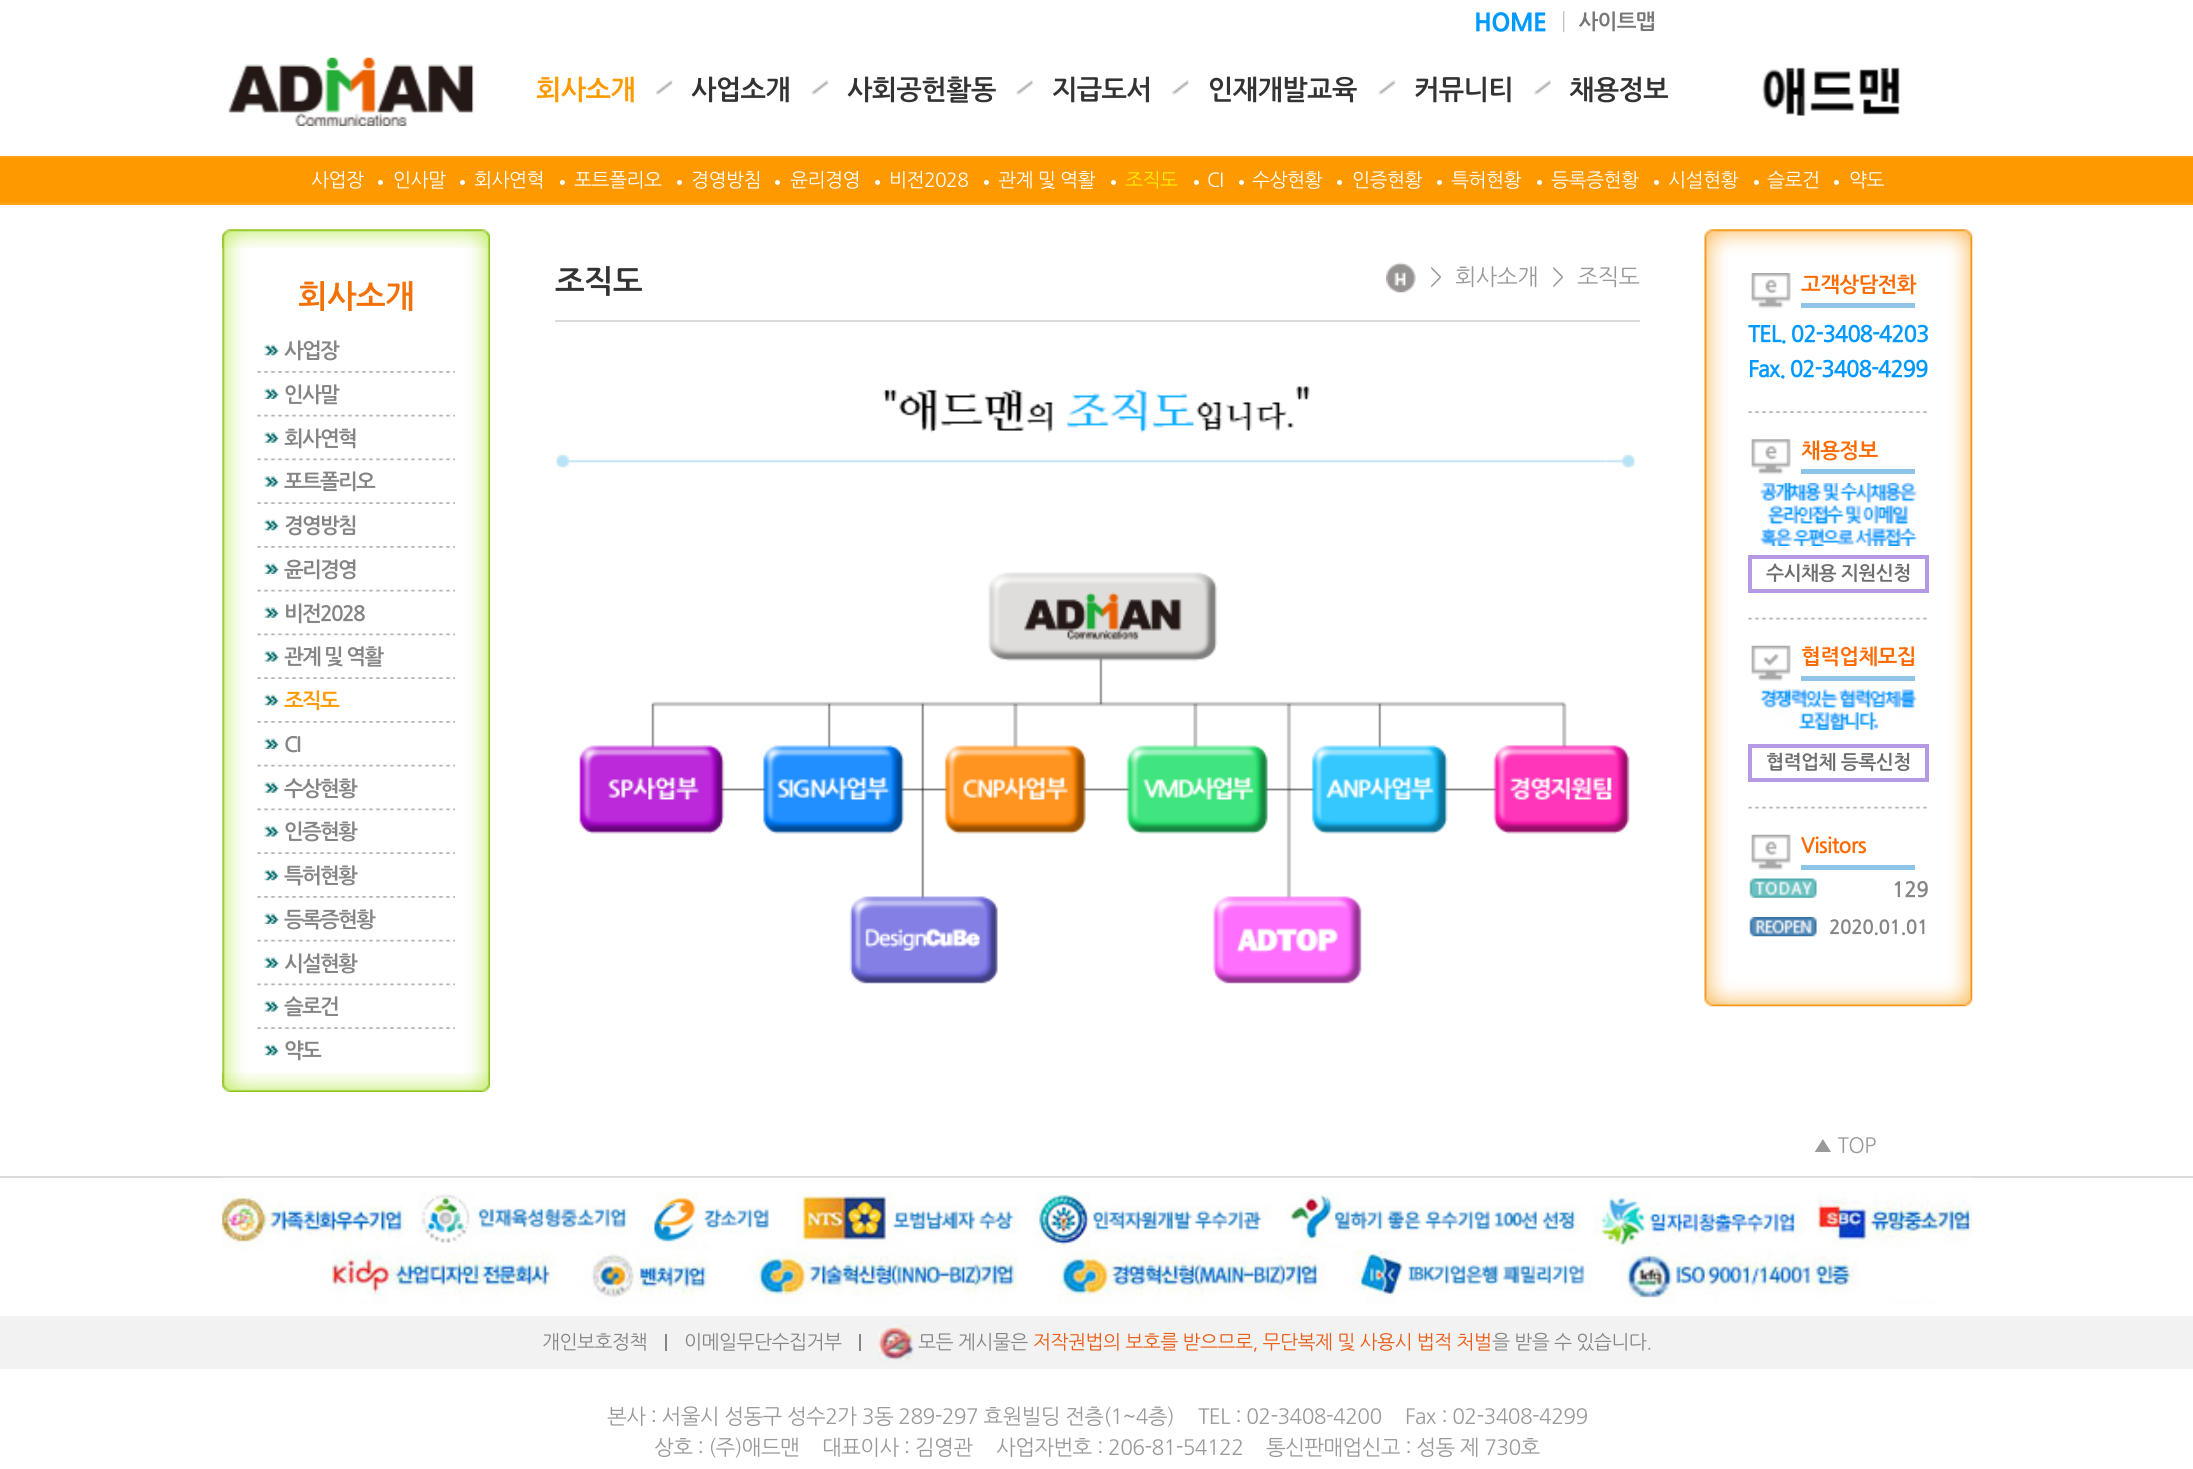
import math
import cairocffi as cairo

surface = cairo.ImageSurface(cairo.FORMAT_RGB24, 2193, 1469)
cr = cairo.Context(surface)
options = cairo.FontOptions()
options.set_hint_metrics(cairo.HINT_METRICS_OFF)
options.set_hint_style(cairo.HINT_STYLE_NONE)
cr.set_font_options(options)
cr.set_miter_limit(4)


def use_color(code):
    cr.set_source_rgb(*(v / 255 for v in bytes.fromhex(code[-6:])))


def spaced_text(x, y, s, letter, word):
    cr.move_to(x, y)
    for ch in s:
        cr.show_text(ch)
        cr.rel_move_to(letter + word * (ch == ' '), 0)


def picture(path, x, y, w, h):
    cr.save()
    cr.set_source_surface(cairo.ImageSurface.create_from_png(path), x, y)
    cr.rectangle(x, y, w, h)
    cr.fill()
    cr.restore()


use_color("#ffffff")
cr.paint()
cr.select_font_face("NanumGothic ExtraBold")
cr.set_font_size(24.5)
use_color("#0099ff")
spaced_text(1474, 30, "HOME", -0.6, 0)
cr.select_font_face("NanumGothic", cairo.FONT_SLANT_NORMAL, cairo.FONT_WEIGHT_BOLD)
cr.set_font_size(21)
use_color("#777777")
spaced_text(1554, 28, "│ 사이트맵", -0.6, 0)
picture("img1.png", 228, 57, 246, 69)
picture("img2.png", 1761, 67, 139, 49)
cr.set_font_size(27)
use_color("#fe9900")
spaced_text(536, 98, "회사소개", -0.6, 0)
picture("img7.png", 0, 156, 2193, 49)
cr.select_font_face("NanumGothic")
cr.set_font_size(19.25)
use_color("#ffffff")
spaced_text(311, 186, "사업장", -0.6, 0)
cr.new_path()
cr.arc(380.5, 182.5, 2.5, 0, 2 * math.pi)
cr.fill()
spaced_text(393, 186, "인사말", -0.6, 0)
cr.new_path()
cr.arc(462.5, 182.5, 2.5, 0, 2 * math.pi)
cr.fill()
spaced_text(474, 186, "회사연혁", -0.6, 0)
cr.new_path()
cr.arc(562.5, 182.5, 2.5, 0, 2 * math.pi)
cr.fill()
spaced_text(574, 186, "포트폴리오", -0.6, 0)
cr.new_path()
cr.arc(679.5, 182.5, 2.5, 0, 2 * math.pi)
cr.fill()
spaced_text(691, 186, "경영방침", -0.6, 0)
cr.new_path()
cr.arc(777.5, 182.5, 2.5, 0, 2 * math.pi)
cr.fill()
spaced_text(790, 186, "윤리경영", -0.6, 0)
cr.new_path()
cr.arc(877.5, 182.5, 2.5, 0, 2 * math.pi)
cr.fill()
spaced_text(889, 186, "비전2028", -0.6, 0)
cr.new_path()
cr.arc(986.5, 182.5, 2.5, 0, 2 * math.pi)
cr.fill()
spaced_text(998, 186, "관계 및 역활", -0.6, 0)
cr.new_path()
cr.arc(1113.5, 182.5, 2.5, 0, 2 * math.pi)
cr.fill()
use_color("#feef00")
spaced_text(1125, 186, "조직도", -0.6, 0)
use_color("#ffffff")
cr.new_path()
cr.arc(1196.5, 182.5, 2.5, 0, 2 * math.pi)
cr.fill()
spaced_text(1207, 186, "CI", -0.6, 0)
cr.new_path()
cr.arc(1241.5, 182.5, 2.5, 0, 2 * math.pi)
cr.fill()
spaced_text(1252, 186, "수상현황", -0.6, 0)
cr.new_path()
cr.arc(1339.5, 182.5, 2.5, 0, 2 * math.pi)
cr.fill()
spaced_text(1352, 186, "인증현황", -0.6, 0)
cr.new_path()
cr.arc(1439.5, 182.5, 2.5, 0, 2 * math.pi)
cr.fill()
spaced_text(1451, 186, "특허현황", -0.6, 0)
cr.new_path()
cr.arc(1539.5, 182.5, 2.5, 0, 2 * math.pi)
cr.fill()
spaced_text(1551, 186, "등록증현황", -0.6, 0)
cr.new_path()
cr.arc(1656.5, 182.5, 2.5, 0, 2 * math.pi)
cr.fill()
spaced_text(1668, 186, "시설현황", -0.6, 0)
cr.new_path()
cr.arc(1756.5, 182.5, 2.5, 0, 2 * math.pi)
cr.fill()
spaced_text(1767, 186, "슬로건", -0.6, 0)
cr.new_path()
cr.arc(1836.5, 182.5, 2.5, 0, 2 * math.pi)
cr.fill()
spaced_text(1849, 186, "약도", -0.6, 0)
picture("img3.png", 656, 80, 17, 15)
cr.select_font_face("NanumGothic", cairo.FONT_SLANT_NORMAL, cairo.FONT_WEIGHT_BOLD)
cr.set_font_size(27)
use_color("#333333")
spaced_text(691, 98, "사업소개", -0.6, 0)
picture("img4.png", 811, 80, 18, 15)
spaced_text(847, 98, "사회공헌활동", -0.6, 0)
picture("img5.png", 1016, 80, 17, 15)
spaced_text(1052, 98, "지급도서", -0.6, 0)
picture("img6.png", 1172, 80, 17, 15)
spaced_text(1208, 98, "인재개발교육", -0.6, 0)
picture("img4.png", 1378, 80, 18, 15)
spaced_text(1414, 98, "커뮤니티", -0.6, 0)
picture("img5.png", 1534, 80, 17, 15)
spaced_text(1569, 98, "채용정보", -0.6, 0)
use_color("#dbdbdb")
cr.rectangle(555, 320, 1085, 2)
cr.fill()
cr.set_font_size(31.5)
use_color("#333333")
spaced_text(555, 291, "조직도", -0.6, 0)
picture("img8.png", 1386, 262, 30, 31)
cr.select_font_face("NanumGothic")
cr.set_font_size(22.75)
use_color("#999999")
spaced_text(1430, 284, ">", -0.6, 0)
spaced_text(1455, 284, "회사소개", -0.6, 0)
spaced_text(1552, 284, ">", -0.6, 0)
spaced_text(1577, 284, "조직도", -0.6, 0)
picture("img9.png", 556, 386, 1079, 82)
picture("img10.png", 579, 572, 1051, 412)
picture("img11.png", 222, 229, 268, 863)
picture("img12.png", 222, 229, 268, 20)
cr.select_font_face("NanumGothic", cairo.FONT_SLANT_NORMAL, cairo.FONT_WEIGHT_BOLD)
cr.set_font_size(31.5)
use_color("#f27109")
spaced_text(298, 306, "회사소개", -0.6, 0)
picture("img13.png", 257, 371, 198, 2)
picture("img14.png", 264, 344, 15, 12)
cr.set_font_size(21)
use_color("#858585")
spaced_text(284, 357, "사업장", -1.75, 0)
picture("img15.png", 257, 414, 198, 3)
picture("img16.png", 264, 388, 15, 11)
spaced_text(284, 401, "인사말", -1.75, 0)
picture("img17.png", 257, 458, 198, 3)
picture("img18.png", 264, 432, 15, 11)
spaced_text(284, 445, "회사연혁", -1.75, 0)
picture("img19.png", 257, 502, 198, 2)
picture("img20.png", 264, 476, 15, 11)
spaced_text(284, 488, "포트폴리오", -1.75, 0)
picture("img13.png", 257, 546, 198, 2)
picture("img14.png", 264, 519, 15, 12)
spaced_text(284, 532, "경영방침", -1.75, 0)
picture("img15.png", 257, 589, 198, 3)
picture("img16.png", 264, 563, 15, 11)
spaced_text(284, 576, "윤리경영", -1.75, 0)
picture("img17.png", 257, 633, 198, 3)
picture("img18.png", 264, 607, 15, 11)
spaced_text(284, 620, "비전2028", -1.75, 0)
picture("img19.png", 257, 677, 198, 2)
picture("img20.png", 264, 651, 15, 11)
spaced_text(284, 663, "관계 및 역활", -1.75, 0)
picture("img13.png", 257, 721, 198, 2)
picture("img14.png", 264, 694, 15, 12)
use_color("#fe9900")
spaced_text(284, 707, "조직도", -1.75, 0)
picture("img21.png", 257, 764, 198, 3)
picture("img16.png", 264, 738, 15, 11)
use_color("#858585")
spaced_text(284, 751, "CI", -1.75, 0)
picture("img17.png", 257, 808, 198, 3)
picture("img18.png", 264, 782, 15, 11)
spaced_text(284, 795, "수상현황", -1.75, 0)
picture("img19.png", 257, 852, 198, 2)
picture("img20.png", 264, 826, 15, 11)
spaced_text(284, 838, "인증현황", -1.75, 0)
picture("img22.png", 257, 896, 198, 2)
picture("img14.png", 264, 869, 15, 12)
spaced_text(284, 882, "특허현황", -1.75, 0)
picture("img15.png", 257, 939, 198, 3)
picture("img16.png", 264, 913, 15, 11)
spaced_text(284, 926, "등록증현황", -1.75, 0)
picture("img17.png", 257, 983, 198, 3)
picture("img18.png", 264, 957, 15, 11)
spaced_text(284, 970, "시설현황", -1.75, 0)
picture("img23.png", 257, 1027, 198, 2)
picture("img20.png", 264, 1001, 15, 11)
spaced_text(284, 1013, "슬로건", -1.75, 0)
picture("img14.png", 264, 1044, 15, 12)
spaced_text(284, 1057, "약도", -1.75, 0)
picture("img24.png", 222, 1072, 268, 20)
picture("img25.png", 1704, 229, 269, 778)
picture("img26.png", 1748, 411, 180, 2)
picture("img27.png", 1751, 273, 40, 35)
use_color("#ff6a00")
spaced_text(1801, 291, "고객상담전화", -0.6, 0)
use_color("#8ec4e8")
cr.rectangle(1801, 303, 114, 5)
cr.fill()
cr.set_font_size(22.75)
use_color("#0099ff")
spaced_text(1748, 341, "TEL. 02-3408-4203", -1.4, 0)
spaced_text(1748, 376, "Fax. 02-3408-4299", -1.4, 0)
picture("img28.png", 1748, 617, 180, 3)
picture("img29.png", 1751, 439, 40, 36)
cr.set_font_size(21)
use_color("#ff6a00")
spaced_text(1801, 457, "채용정보", -0.6, 0)
use_color("#8ec4e8")
cr.rectangle(1801, 469, 114, 5)
cr.fill()
picture("img30.png", 1760, 483, 157, 63)
cr.rectangle(1750, 557, 177, 34)
use_color("#b599e4")
cr.set_line_width(4)
cr.stroke()
cr.set_font_size(19.25)
use_color("#6e6e6e")
spaced_text(1766, 579, "수시채용 지원신청", -0.6, 0)
picture("img28.png", 1748, 806, 180, 3)
picture("img31.png", 1751, 645, 40, 36)
cr.set_font_size(21)
use_color("#ff6a00")
spaced_text(1801, 663, "협력업체모집", -0.6, 0)
use_color("#8ec4e8")
cr.rectangle(1801, 676, 114, 5)
cr.fill()
picture("img32.png", 1760, 689, 157, 41)
cr.rectangle(1750, 746, 177, 34)
use_color("#b599e4")
cr.stroke()
cr.set_font_size(19.25)
use_color("#6e6e6e")
spaced_text(1766, 768, "협력업체 등록신청", -0.6, 0)
picture("img33.png", 1751, 834, 40, 36)
cr.set_font_size(21)
use_color("#ff6a00")
spaced_text(1801, 852, "Visitors", -0.6, 0)
use_color("#8ec4e8")
cr.rectangle(1801, 865, 114, 5)
cr.fill()
picture("img34.png", 1749, 878, 68, 20)
use_color("#858585")
spaced_text(1892, 896, "129", -0.6, 0)
picture("img35.png", 1749, 917, 68, 20)
cr.set_font_size(19.25)
spaced_text(1829, 933, "2020.01.01", -0.6, 0)
cr.select_font_face("NanumGothic")
cr.set_font_size(21)
use_color("#999999")
spaced_text(1813, 1152, "▲ TOP", -0.6, 0)
use_color("#f2f2f2")
cr.rectangle(0, 1316, 2193, 53)
cr.fill()
cr.set_font_size(19.25)
use_color("#858585")
spaced_text(542, 1348, "개인보호정책", -0.6, 0)
cr.rectangle(665, 1334, 2, 17)
cr.fill()
spaced_text(684, 1348, "이메일무단수집거부", -0.6, 0)
cr.rectangle(859, 1334, 2, 17)
cr.fill()
picture("img36.png", 878, 1325, 36, 38)
spaced_text(918, 1348, "모든 게시물은", -0.6, 0)
use_color("#ea5d17")
spaced_text(1033, 1348, "저작권법의 보호를 받으므로, 무단복제 및 사용시 법적 처벌", -0.6, 0)
use_color("#858585")
spaced_text(1492, 1348, "을 받을 수 있습니다.", -0.6, 0)
cr.set_font_size(21)
use_color("#999999")
spaced_text(607, 1423, "본사 : 서울시 성동구 성수2가 3동 289-297 효원빌딩 전층(1~4층)", -0.6, 0)
spaced_text(1198, 1423, "TEL : 02-3408-4200", -0.6, 0)
spaced_text(1405, 1423, "Fax : 02-3408-4299", -0.6, 0)
spaced_text(654, 1454, "상호 : (주)애드맨", -0.6, 0)
spaced_text(822, 1454, "대표이사 : 김영관", -0.6, 0)
spaced_text(996, 1454, "사업자번호 : 206-81-54122", -0.6, 0)
spaced_text(1266, 1454, "통신판매업신고 : 성동 제 730호", -0.6, 0)
use_color("#dbdbdb")
cr.rectangle(0, 1176, 2193, 2)
cr.fill()
picture("img37.png", 222, 1177, 1751, 127)
surface.write_to_png("result.png")
